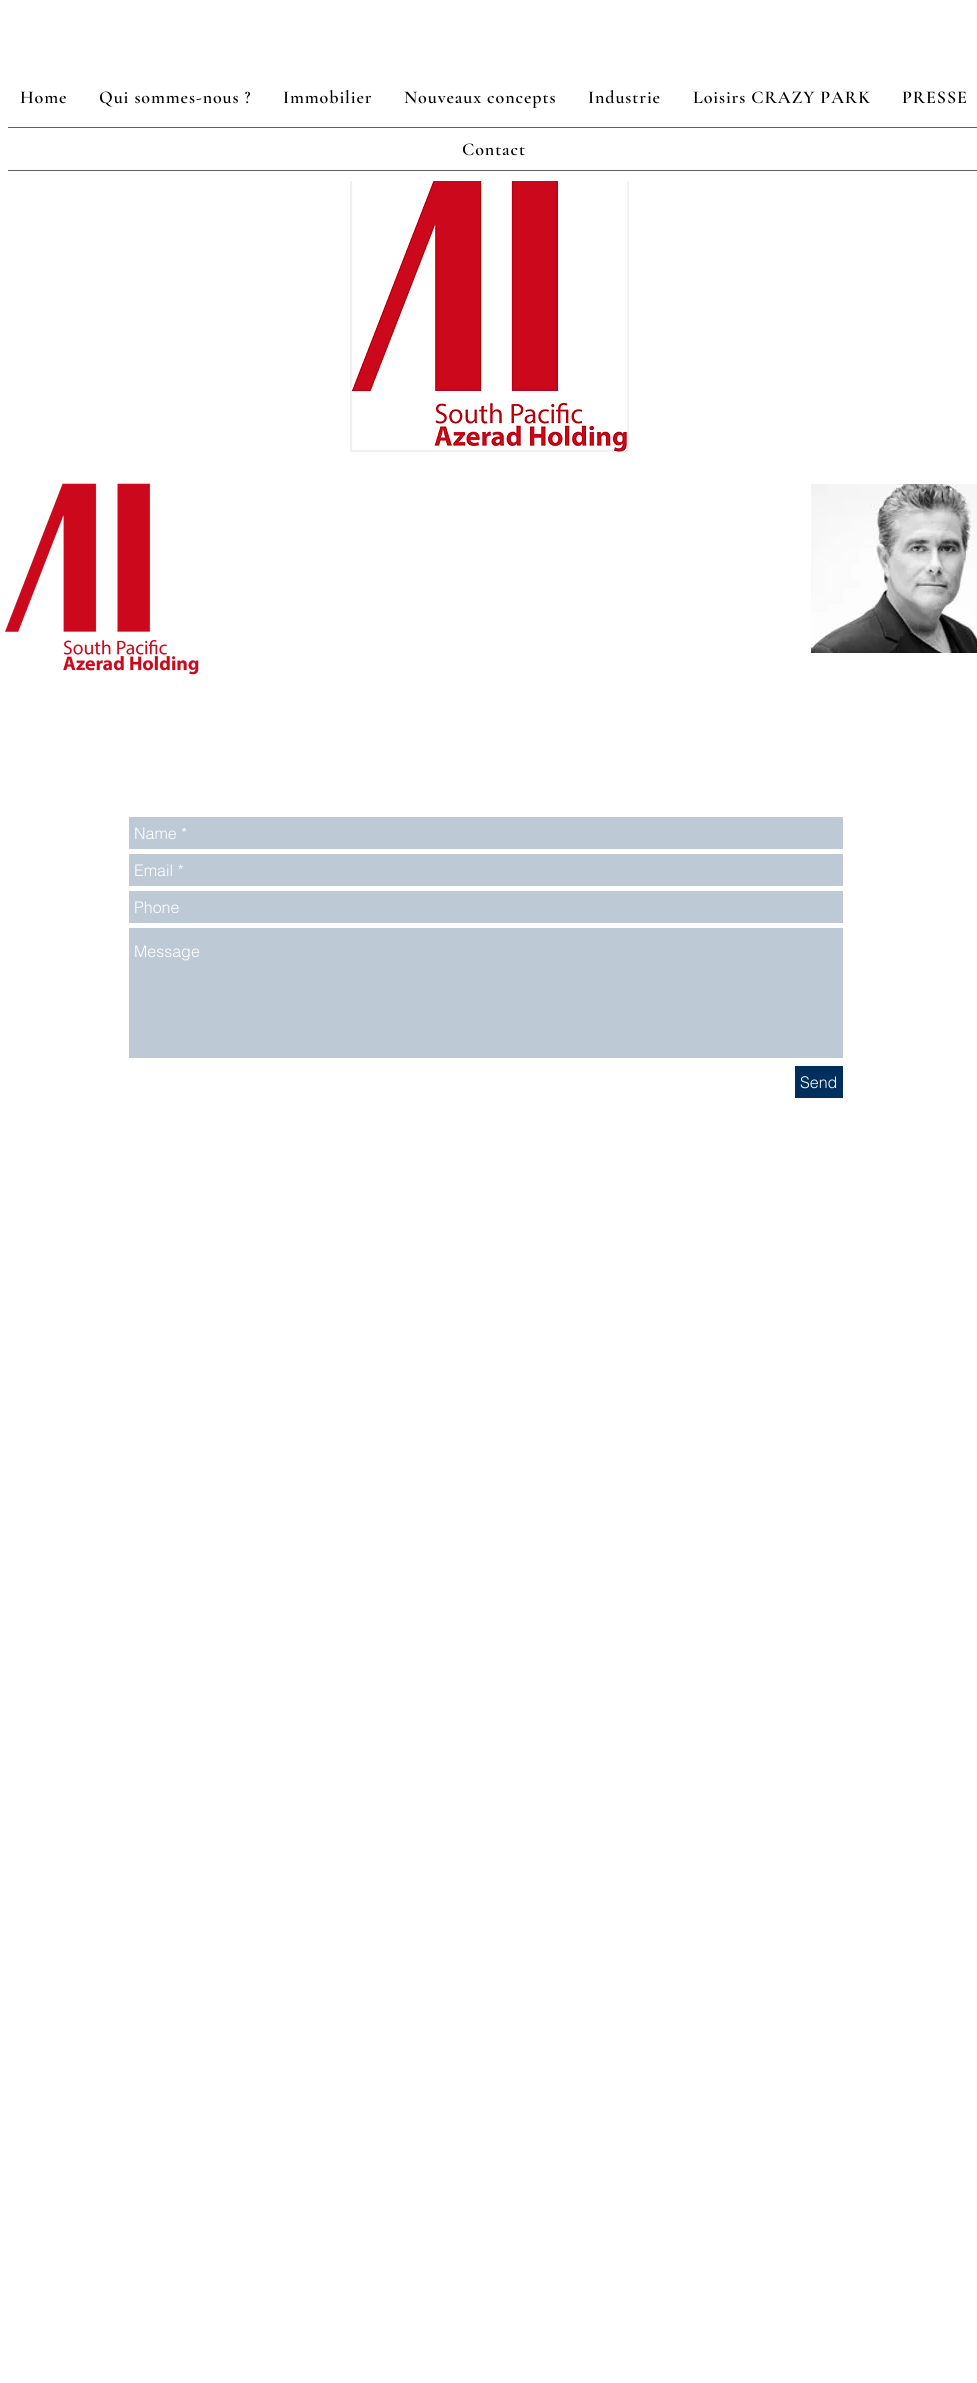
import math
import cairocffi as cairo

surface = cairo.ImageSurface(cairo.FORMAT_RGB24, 977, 2383)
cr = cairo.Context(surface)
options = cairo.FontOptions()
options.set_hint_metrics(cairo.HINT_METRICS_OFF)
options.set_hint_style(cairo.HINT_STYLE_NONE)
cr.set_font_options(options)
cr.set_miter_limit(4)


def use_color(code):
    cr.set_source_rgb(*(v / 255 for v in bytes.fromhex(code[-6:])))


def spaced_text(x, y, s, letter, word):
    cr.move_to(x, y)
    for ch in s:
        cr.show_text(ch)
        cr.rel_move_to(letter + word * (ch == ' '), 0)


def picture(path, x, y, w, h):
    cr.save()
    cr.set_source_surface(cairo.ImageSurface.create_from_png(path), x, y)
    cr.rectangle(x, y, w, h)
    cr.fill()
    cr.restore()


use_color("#ffffff")
cr.paint()
cr.select_font_face("Cormorant Garamond SemiBold")
cr.set_font_size(18)
use_color("#000000")
spaced_text(20, 103, "Home", 0.9, 0)
spaced_text(99, 103, "Qui sommes-nous ?", 0.9, 0)
spaced_text(283, 103, "Immobilier", 0.9, 0)
spaced_text(404, 103, "Nouveaux concepts", 0.9, 0)
spaced_text(588, 103, "Industrie", 0.9, 0)
spaced_text(693, 103, "Loisirs CRAZY PARK", 0.9, 0)
spaced_text(902, 103, "PRESSE", 0.9, 0)
use_color("#606060")
cr.rectangle(8, 127, 969, 1)
cr.fill()
cr.rectangle(8, 170, 969, 1)
cr.fill()
use_color("#000000")
spaced_text(462, 155, "Contact", 0.9, 0)
picture("img1.png", 350, 181, 279, 271)
picture("img2.png", 5, 483, 194, 192)
picture("img3.png", 811, 484, 166, 169)
use_color("#bdc9d5")
cr.rectangle(129, 817, 714, 32)
cr.fill()
cr.select_font_face("helvetica Light")
cr.set_font_size(16)
use_color("#ffffff")
cr.move_to(134, 839)
cr.show_text("Name *")
use_color("#bdc9d5")
cr.rectangle(129, 854, 714, 32)
cr.fill()
use_color("#ffffff")
cr.move_to(134, 876)
cr.show_text("Email *")
use_color("#bdc9d5")
cr.rectangle(129, 891, 714, 32)
cr.fill()
use_color("#ffffff")
cr.move_to(134, 913)
cr.show_text("Phone")
use_color("#bdc9d5")
cr.rectangle(129, 928, 714, 130)
cr.fill()
use_color("#ffffff")
cr.move_to(134, 957)
cr.show_text("Message")
use_color("#002e5d")
cr.rectangle(795, 1066, 48, 32)
cr.fill()
use_color("#ffffff")
cr.move_to(800, 1088)
cr.show_text("Send")
surface.write_to_png("result.png")
